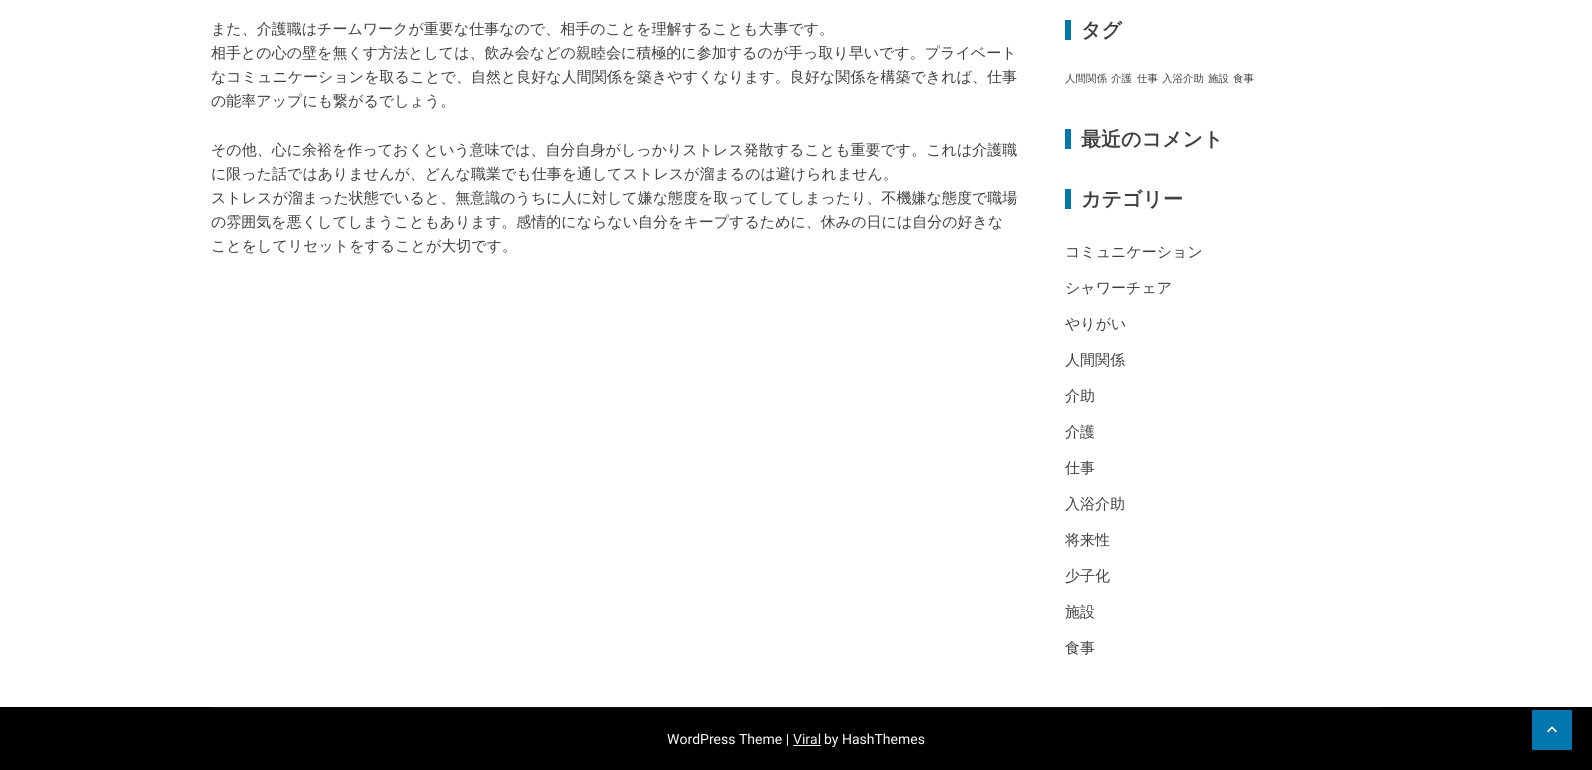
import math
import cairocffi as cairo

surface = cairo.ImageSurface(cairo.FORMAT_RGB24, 1592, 770)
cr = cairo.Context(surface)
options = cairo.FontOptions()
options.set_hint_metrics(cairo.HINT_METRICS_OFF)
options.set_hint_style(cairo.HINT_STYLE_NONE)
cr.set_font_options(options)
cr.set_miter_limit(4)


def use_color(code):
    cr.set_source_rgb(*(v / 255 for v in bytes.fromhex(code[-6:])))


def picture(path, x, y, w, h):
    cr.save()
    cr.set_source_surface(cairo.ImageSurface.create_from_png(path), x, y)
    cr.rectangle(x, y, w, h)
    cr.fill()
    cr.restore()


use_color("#ffffff")
cr.paint()
cr.select_font_face("WenQuanYi Zen Hei Medium")
cr.set_font_size(15)
use_color("#404040")
cr.move_to(211, 34)
cr.show_text("また、介護職はチームワークが重要な仕事なので、相手のことを理解することも大事です。")
cr.move_to(211, 58)
cr.show_text("相手との心の壁を無くす方法としては、飲み会などの親睦会に積極的に参加するのが手っ取り早いです。プライベート")
cr.move_to(211, 82)
cr.show_text("なコミュニケーションを取ることで、自然と良好な人間関係を築きやすくなります。良好な関係を構築できれば、仕事")
cr.move_to(211, 106)
cr.show_text("の能率アップにも繋がるでしょう。")
cr.move_to(211, 155)
cr.show_text("その他、心に余裕を作っておくという意味では、自分自身がしっかりストレス発散することも重要です。これは介護職")
cr.move_to(211, 179)
cr.show_text("に限った話ではありませんが、どんな職業でも仕事を通してストレスが溜まるのは避けられません。")
cr.move_to(211, 203)
cr.show_text("ストレスが溜まった状態でいると、無意識のうちに人に対して嫌な態度を取ってしてしまったり、不機嫌な態度で職場")
cr.move_to(211, 227)
cr.show_text("の雰囲気を悪くしてしまうこともあります。感情的にならない自分をキープするために、休みの日には自分の好きな")
cr.move_to(211, 251)
cr.show_text("ことをしてリセットをすることが大切です。")
use_color("#0078af")
cr.rectangle(1065, 20, 6, 20)
cr.fill()
cr.select_font_face("WenQuanYi Zen Hei", cairo.FONT_SLANT_NORMAL, cairo.FONT_WEIGHT_BOLD)
cr.set_font_size(20)
use_color("#404040")
cr.move_to(1081, 37)
cr.show_text("タグ")
cr.select_font_face("WenQuanYi Zen Hei Medium")
cr.set_font_size(10.5)
cr.move_to(1065, 82)
cr.show_text("人間関係")
cr.move_to(1111, 82)
cr.show_text("介護")
cr.move_to(1137, 82)
cr.show_text("仕事")
cr.move_to(1162, 82)
cr.show_text("入浴介助")
cr.move_to(1208, 82)
cr.show_text("施設")
cr.move_to(1233, 82)
cr.show_text("食事")
use_color("#0078af")
cr.rectangle(1065, 129, 6, 20)
cr.fill()
cr.select_font_face("WenQuanYi Zen Hei", cairo.FONT_SLANT_NORMAL, cairo.FONT_WEIGHT_BOLD)
cr.set_font_size(20)
use_color("#404040")
cr.move_to(1081, 146)
cr.show_text("最近のコメント")
use_color("#0078af")
cr.rectangle(1065, 189, 6, 20)
cr.fill()
use_color("#404040")
cr.move_to(1081, 206)
cr.show_text("カテゴリー")
cr.select_font_face("WenQuanYi Zen Hei Medium")
cr.set_font_size(15)
cr.move_to(1065, 257)
cr.show_text("コミュニケーション")
cr.move_to(1065, 293)
cr.show_text("シャワーチェア")
cr.move_to(1065, 329)
cr.show_text("やりがい")
cr.move_to(1065, 365)
cr.show_text("人間関係")
cr.move_to(1065, 401)
cr.show_text("介助")
cr.move_to(1065, 437)
cr.show_text("介護")
cr.move_to(1065, 473)
cr.show_text("仕事")
cr.move_to(1065, 509)
cr.show_text("入浴介助")
cr.move_to(1065, 545)
cr.show_text("将来性")
cr.move_to(1065, 581)
cr.show_text("少子化")
cr.move_to(1065, 617)
cr.show_text("施設")
cr.move_to(1065, 653)
cr.show_text("食事")
use_color("#000000")
cr.rectangle(0, 707, 1592, 63)
cr.fill()
use_color("#111111")
cr.rectangle(211, 707, 1170, 1)
cr.fill()
cr.select_font_face("Roboto")
cr.set_font_size(14)
use_color("#fafafa")
cr.move_to(667, 744)
cr.show_text("WordPress Theme |")
use_color("#f0f0f0")
cr.move_to(793, 744)
cr.show_text("Viral")
cr.rectangle(793, 745, 28, 1)
cr.fill()
use_color("#fafafa")
cr.move_to(824, 744)
cr.show_text("by HashThemes")
use_color("#0078af")
cr.rectangle(1532, 710, 40, 40)
cr.fill()
picture("img1.png", 1547, 726, 10, 7)
surface.write_to_png("result.png")
